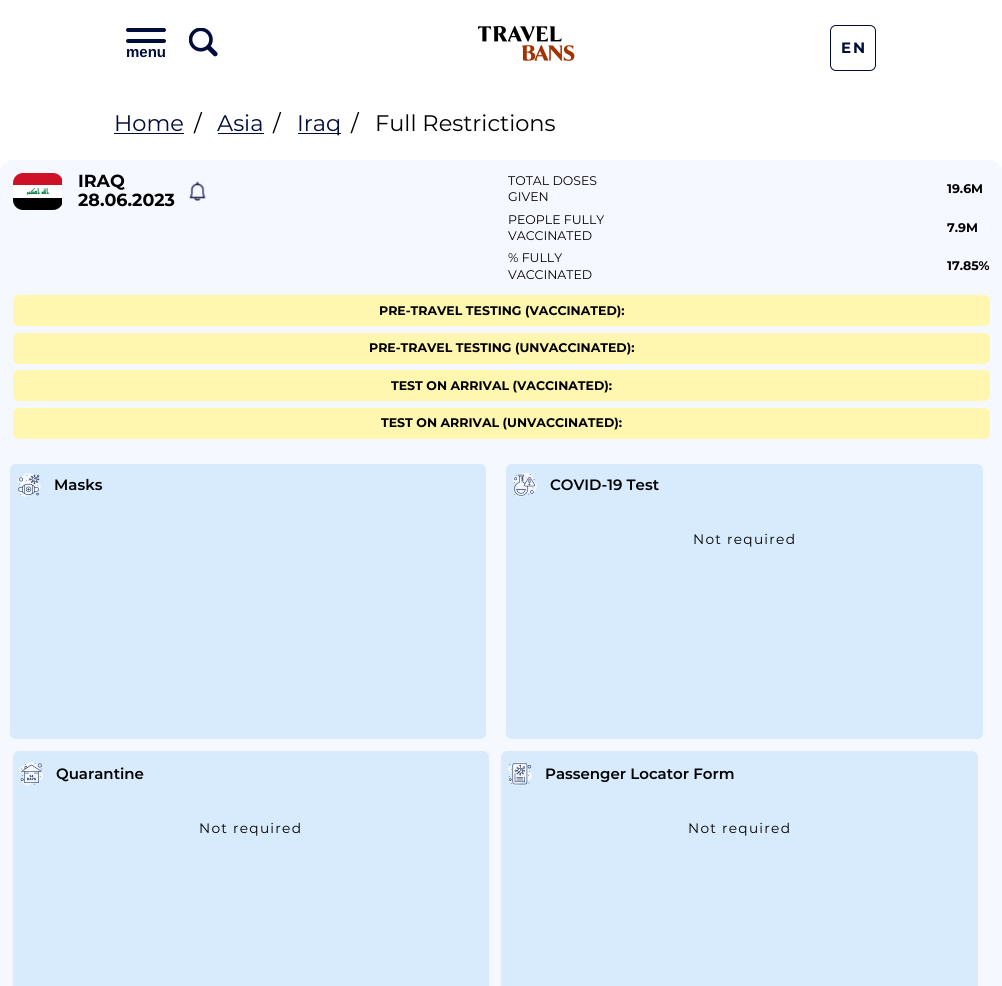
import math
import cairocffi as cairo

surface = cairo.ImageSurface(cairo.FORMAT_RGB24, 1002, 986)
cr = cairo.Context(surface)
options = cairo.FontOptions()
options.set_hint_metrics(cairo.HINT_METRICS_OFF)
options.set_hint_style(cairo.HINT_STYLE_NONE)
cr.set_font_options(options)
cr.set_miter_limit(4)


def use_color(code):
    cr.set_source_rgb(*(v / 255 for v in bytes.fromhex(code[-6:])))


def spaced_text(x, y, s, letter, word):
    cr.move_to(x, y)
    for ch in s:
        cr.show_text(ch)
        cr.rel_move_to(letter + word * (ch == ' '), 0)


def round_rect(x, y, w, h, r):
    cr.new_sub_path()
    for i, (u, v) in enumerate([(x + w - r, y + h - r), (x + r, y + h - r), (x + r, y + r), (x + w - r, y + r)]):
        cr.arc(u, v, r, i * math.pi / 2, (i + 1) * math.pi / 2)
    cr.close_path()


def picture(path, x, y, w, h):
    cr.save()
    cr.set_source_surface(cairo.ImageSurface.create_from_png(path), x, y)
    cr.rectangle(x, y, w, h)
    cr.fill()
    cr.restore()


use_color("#ffffff")
cr.paint()
use_color("#000c39")
round_rect(126, 28, 40, 4, 2)
cr.fill()
round_rect(126, 39, 40, 4, 2)
cr.fill()
cr.select_font_face("Liberation Sans", cairo.FONT_SLANT_NORMAL, cairo.FONT_WEIGHT_BOLD)
cr.set_font_size(15)
cr.move_to(126, 57)
cr.show_text("menu")
picture("img1.png", 189, 28, 29, 29)
picture("img2.png", 478, 26, 97, 35)
round_rect(830.5, 25.5, 45, 45, 5.5)
cr.set_line_width(1)
cr.stroke()
cr.select_font_face("Montserrat", cairo.FONT_SLANT_NORMAL, cairo.FONT_WEIGHT_BOLD)
spaced_text(841, 53, "EN", 2, 0)
cr.select_font_face("Montserrat")
cr.set_font_size(22.5)
cr.move_to(114, 131)
cr.show_text("Home")
cr.rectangle(114, 133, 70, 1)
cr.fill()
use_color("#000000")
cr.move_to(194, 131)
cr.show_text("/")
use_color("#000c39")
cr.move_to(217, 131)
cr.show_text("Asia")
cr.rectangle(218, 133, 46, 1)
cr.fill()
use_color("#000000")
cr.move_to(273, 131)
cr.show_text("/")
use_color("#000c39")
cr.rectangle(298, 133, 43, 1)
cr.fill()
cr.move_to(297, 131)
cr.show_text("Iraq")
use_color("#000000")
cr.move_to(351, 131)
cr.show_text("/")
cr.move_to(375, 131)
cr.show_text("Full Restrictions")
use_color("#f6f8ff")
round_rect(0, 160, 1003, 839, 13)
cr.fill()
picture("img3.png", 13, 173, 49, 37)
cr.select_font_face("Montserrat", cairo.FONT_SLANT_NORMAL, cairo.FONT_WEIGHT_BOLD)
cr.set_font_size(17.5)
use_color("#000000")
cr.move_to(78, 187)
cr.show_text("IRAQ")
cr.move_to(78, 206)
cr.show_text("28.06.2023")
picture("img4.png", 189, 181, 17, 20)
cr.select_font_face("Montserrat")
cr.set_font_size(12.5)
cr.move_to(508, 185)
cr.show_text("TOTAL DOSES")
cr.move_to(508, 201)
cr.show_text("GIVEN")
cr.select_font_face("Montserrat", cairo.FONT_SLANT_NORMAL, cairo.FONT_WEIGHT_BOLD)
cr.move_to(947, 193)
cr.show_text("19.6M")
cr.select_font_face("Montserrat")
cr.move_to(508, 224)
cr.show_text("PEOPLE FULLY")
cr.move_to(508, 240)
cr.show_text("VACCINATED")
cr.select_font_face("Montserrat", cairo.FONT_SLANT_NORMAL, cairo.FONT_WEIGHT_BOLD)
cr.move_to(947, 232)
cr.show_text("7.9M")
cr.select_font_face("Montserrat")
cr.move_to(508, 262)
cr.show_text("% FULLY")
cr.move_to(508, 279)
cr.show_text("VACCINATED")
cr.select_font_face("Montserrat", cairo.FONT_SLANT_NORMAL, cairo.FONT_WEIGHT_BOLD)
cr.move_to(947, 270)
cr.show_text("17.85%")
use_color("#fff6af")
round_rect(13, 295, 977, 31, 6)
cr.fill()
use_color("#000000")
cr.move_to(379, 315)
cr.show_text("PRE-TRAVEL TESTING (VACCINATED):")
use_color("#fff6af")
round_rect(13, 333, 977, 31, 6)
cr.fill()
use_color("#000000")
cr.move_to(369, 352)
cr.show_text("PRE-TRAVEL TESTING (UNVACCINATED):")
use_color("#fff6af")
round_rect(13, 370, 977, 31, 6)
cr.fill()
use_color("#000000")
cr.move_to(391, 390)
cr.show_text("TEST ON ARRIVAL (VACCINATED):")
use_color("#fff6af")
round_rect(13, 408, 977, 31, 6)
cr.fill()
use_color("#000000")
cr.move_to(381, 427)
cr.show_text("TEST ON ARRIVAL (UNVACCINATED):")
use_color("#d8ebfd")
round_rect(10, 464, 476, 275, 6)
cr.fill()
picture("img5.png", 17, 473, 24, 24)
cr.select_font_face("Montserrat SemiBold")
cr.set_font_size(15)
use_color("#000000")
cr.move_to(54, 490)
cr.show_text("Masks")
use_color("#d8ebfd")
round_rect(506, 464, 477, 275, 6)
cr.fill()
picture("img6.png", 513, 473, 24, 24)
use_color("#000000")
cr.move_to(550, 490)
cr.show_text("COVID-19 Test")
cr.select_font_face("Montserrat")
cr.set_font_size(13.75)
spaced_text(693, 544, "Not required", 1.25, 0)
use_color("#d8ebfd")
round_rect(13, 751, 476, 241, 6)
cr.fill()
picture("img7.png", 19, 762, 24, 24)
cr.select_font_face("Montserrat SemiBold")
cr.set_font_size(15)
use_color("#000000")
cr.move_to(56, 779)
cr.show_text("Quarantine")
cr.select_font_face("Montserrat")
cr.set_font_size(13.75)
spaced_text(199, 833, "Not required", 1.25, 0)
use_color("#d8ebfd")
round_rect(501, 751, 477, 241, 6)
cr.fill()
picture("img8.png", 508, 762, 24, 24)
cr.select_font_face("Montserrat SemiBold")
cr.set_font_size(15)
use_color("#000000")
cr.move_to(545, 779)
cr.show_text("Passenger Locator Form")
cr.select_font_face("Montserrat")
cr.set_font_size(13.75)
spaced_text(688, 833, "Not required", 1.25, 0)
surface.write_to_png("result.png")
